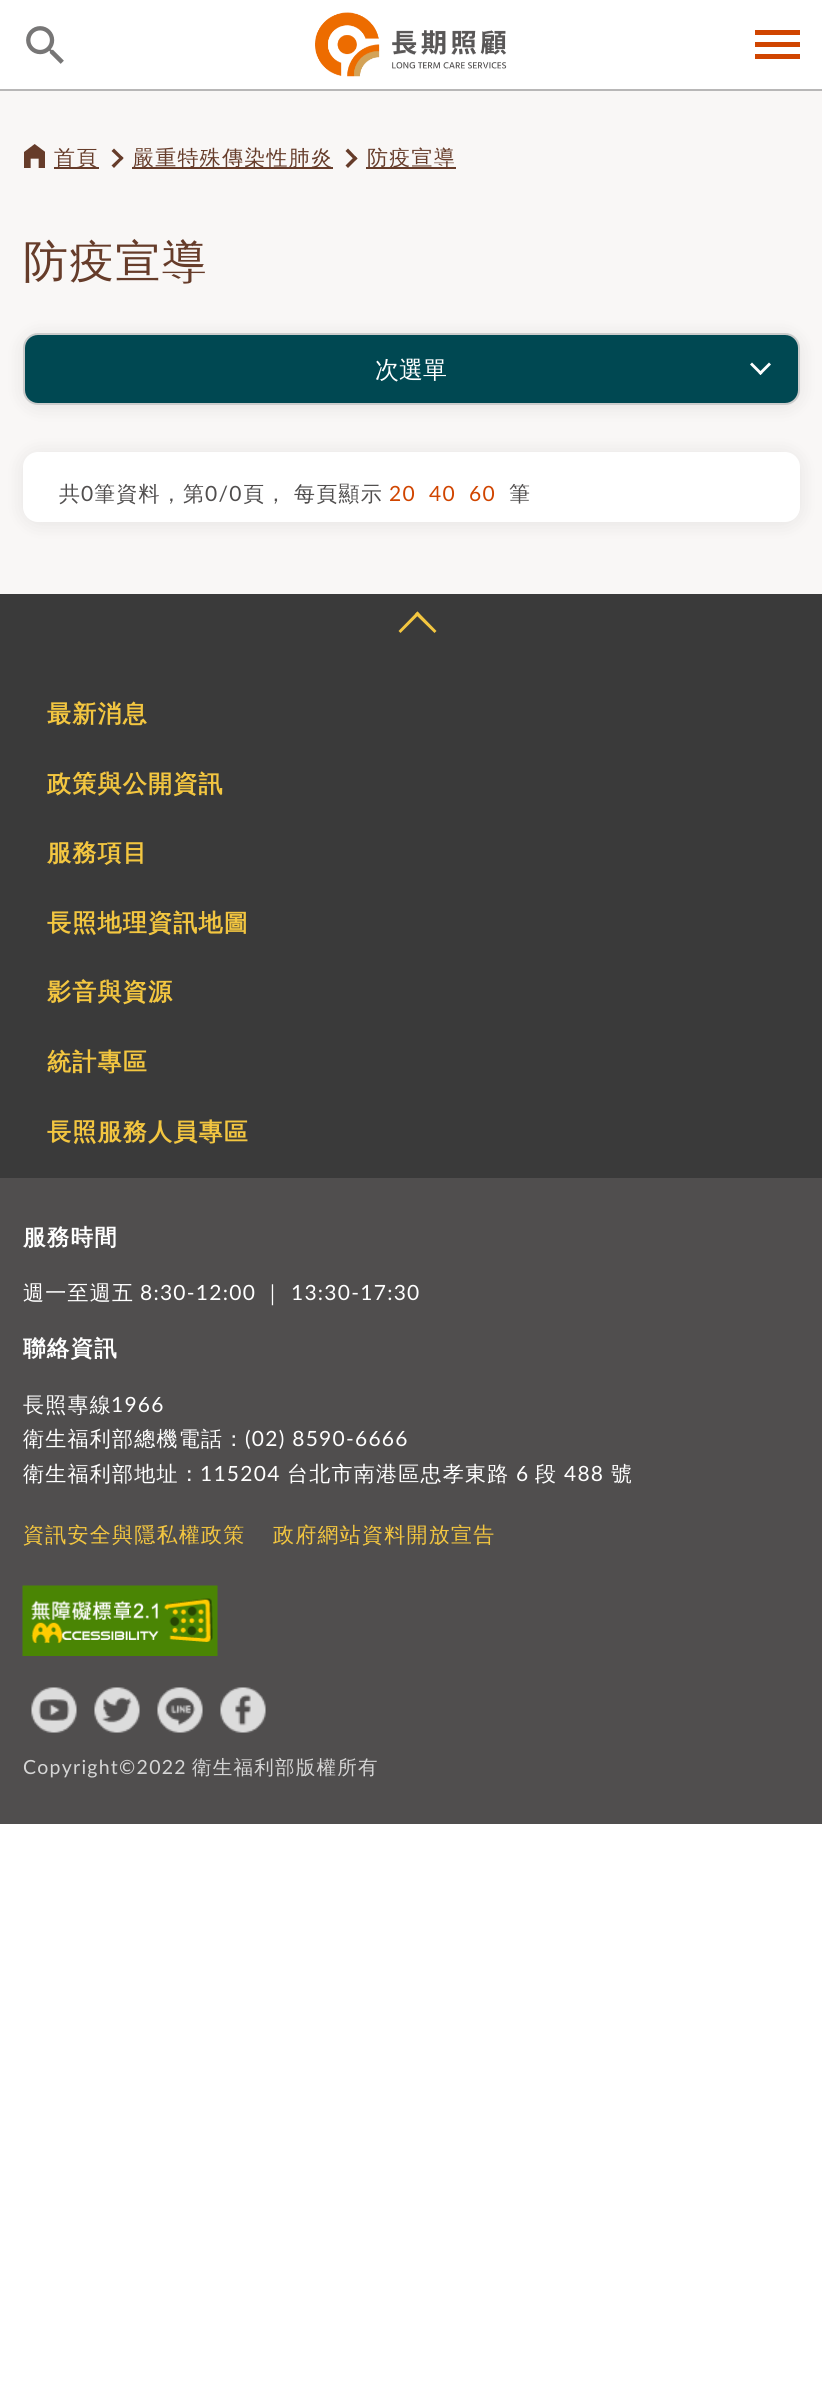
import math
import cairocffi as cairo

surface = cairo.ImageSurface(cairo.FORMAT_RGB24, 822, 2383)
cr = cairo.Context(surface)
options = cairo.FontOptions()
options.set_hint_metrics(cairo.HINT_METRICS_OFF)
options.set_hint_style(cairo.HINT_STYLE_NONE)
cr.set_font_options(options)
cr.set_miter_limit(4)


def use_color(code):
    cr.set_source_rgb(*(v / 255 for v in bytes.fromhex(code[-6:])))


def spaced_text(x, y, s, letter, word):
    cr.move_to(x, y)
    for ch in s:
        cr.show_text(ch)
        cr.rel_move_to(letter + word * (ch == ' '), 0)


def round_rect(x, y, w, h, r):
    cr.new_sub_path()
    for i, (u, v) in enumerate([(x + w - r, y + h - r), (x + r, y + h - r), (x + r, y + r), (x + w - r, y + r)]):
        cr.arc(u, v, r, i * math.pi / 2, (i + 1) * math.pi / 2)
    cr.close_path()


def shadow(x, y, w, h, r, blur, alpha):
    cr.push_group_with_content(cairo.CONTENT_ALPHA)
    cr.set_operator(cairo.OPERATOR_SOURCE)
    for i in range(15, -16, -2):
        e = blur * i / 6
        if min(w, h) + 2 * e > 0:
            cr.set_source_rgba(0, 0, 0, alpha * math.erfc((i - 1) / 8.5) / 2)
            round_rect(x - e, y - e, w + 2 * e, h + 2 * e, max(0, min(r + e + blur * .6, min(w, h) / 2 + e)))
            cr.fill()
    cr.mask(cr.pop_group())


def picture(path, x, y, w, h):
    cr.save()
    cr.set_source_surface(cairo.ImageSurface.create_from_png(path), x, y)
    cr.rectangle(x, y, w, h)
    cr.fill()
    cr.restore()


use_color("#ffffff")
cr.paint()
use_color("#b8b7b7")
cr.rectangle(0, 89, 822, 2)
cr.fill()
picture("img1.png", 26, 26, 38, 38)
picture("img2.png", 315, 12, 192, 65)
use_color("#d04500")
cr.rectangle(755, 30, 45, 5)
cr.fill()
cr.rectangle(755, 42, 45, 5)
cr.fill()
cr.rectangle(755, 54, 45, 5)
cr.fill()
use_color("#f9f7f6")
cr.rectangle(0, 91, 822, 503)
cr.fill()
picture("img3.png", 24, 144, 21, 24)
use_color("#663c2a")
cr.rectangle(54, 167, 45, 2)
cr.fill()
cr.select_font_face("WenQuanYi Zen Hei Medium")
cr.set_font_size(21)
spaced_text(54, 165, "首頁", 1.25, 0)
cr.new_path()
cr.move_to(114, 148.5)
cr.line_to(123.5, 158)
cr.line_to(121.5, 160.5)
cr.line_to(111.5, 151)
cr.close_path()
cr.fill()
cr.new_path()
cr.move_to(121.5, 156)
cr.line_to(123.5, 158)
cr.line_to(114, 168)
cr.line_to(111.5, 165.5)
cr.close_path()
cr.fill()
cr.rectangle(132, 167, 201, 2)
cr.fill()
spaced_text(133, 165, "嚴重特殊傳染性肺炎", 1.25, 0)
cr.new_path()
cr.move_to(348, 148.5)
cr.line_to(357.5, 158.5)
cr.line_to(355, 160.5)
cr.line_to(345.5, 151)
cr.close_path()
cr.fill()
cr.new_path()
cr.move_to(355, 156)
cr.line_to(357.5, 158.5)
cr.line_to(348, 168)
cr.line_to(345.5, 165.5)
cr.close_path()
cr.fill()
cr.rectangle(366, 167, 90, 2)
cr.fill()
spaced_text(367, 165, "防疫宣導", 1.25, 0)
cr.set_font_size(45)
spaced_text(23, 277, "防疫宣導", 1.25, 0)
use_color("#000000")
shadow(23, 335, 777, 72, 15, 10, 0.08)
use_color("#004852")
round_rect(24, 334, 775, 70, 14)
cr.fill_preserve()
use_color("#cccccc")
cr.stroke()
cr.set_font_size(24)
use_color("#ffffff")
cr.move_to(375, 378)
cr.show_text("次選單")
cr.new_path()
cr.move_to(771, 364.5)
cr.line_to(760.5, 375)
cr.line_to(758.5, 373)
cr.line_to(769, 362.5)
cr.close_path()
cr.fill()
cr.new_path()
cr.move_to(762.5, 373)
cr.line_to(760.5, 375)
cr.line_to(750, 364.5)
cr.line_to(752, 362.5)
cr.close_path()
cr.fill()
use_color("#000000")
shadow(23, 453, 777, 71, 15, 10, 0.08)
use_color("#ffffff")
round_rect(23, 452, 777, 70, 15)
cr.fill()
cr.set_font_size(21)
use_color("#504e4e")
spaced_text(59, 501, "共", 1.25, 0)
cr.select_font_face("Lato")
spaced_text(81, 501, "0", 1.25, 0)
cr.select_font_face("WenQuanYi Zen Hei Medium")
spaced_text(94, 501, "筆資料，第", 1.25, 0)
cr.select_font_face("Lato")
spaced_text(205, 501, "0/0", 1.25, 0)
cr.select_font_face("WenQuanYi Zen Hei Medium")
spaced_text(243, 501, "頁，", 1.25, 0)
spaced_text(294, 501, "每頁顯示", 1.25, 0)
cr.select_font_face("Lato")
use_color("#d04500")
spaced_text(389, 501, "20", 1.25, 0)
spaced_text(429, 501, "40", 1.25, 0)
spaced_text(469, 501, "60", 1.25, 0)
cr.select_font_face("WenQuanYi Zen Hei Medium")
use_color("#504e4e")
spaced_text(509, 501, "筆", 1.25, 0)
use_color("#3a3a3a")
cr.rectangle(0, 594, 822, 584)
cr.fill()
use_color("#f3c640")
cr.new_path()
cr.move_to(398.5, 631)
cr.line_to(417.5, 611.5)
cr.line_to(419.5, 614)
cr.line_to(400.5, 633)
cr.close_path()
cr.fill()
cr.new_path()
cr.move_to(415, 614)
cr.line_to(417.5, 611.5)
cr.line_to(436.5, 631)
cr.line_to(434.5, 633)
cr.close_path()
cr.fill()
cr.select_font_face("WenQuanYi Zen Hei", cairo.FONT_SLANT_NORMAL, cairo.FONT_WEIGHT_BOLD)
cr.set_font_size(24)
spaced_text(47, 722, "最新消息", 1.25, 0)
spaced_text(47, 792, "政策與公開資訊", 1.25, 0)
spaced_text(47, 861, "服務項目", 1.25, 0)
spaced_text(47, 931, "長照地理資訊地圖", 1.25, 0)
spaced_text(47, 1000, "影音與資源", 1.25, 0)
spaced_text(47, 1070, "統計專區", 1.25, 0)
spaced_text(47, 1140, "長照服務人員專區", 1.25, 0)
use_color("#504e4e")
cr.rectangle(0, 1178, 822, 646)
cr.fill()
cr.set_font_size(22.5)
use_color("#ffffff")
spaced_text(23, 1245, "服務時間", 1.25, 0)
cr.select_font_face("WenQuanYi Zen Hei Medium")
cr.set_font_size(21)
spaced_text(23, 1300, "週一至週五", 1.25, 0)
cr.select_font_face("Lato")
spaced_text(140, 1300, "8:30-12:00", 1.25, 0)
cr.select_font_face("WenQuanYi Zen Hei Medium")
spaced_text(262, 1300, "｜", 1.25, 0)
cr.select_font_face("Lato")
spaced_text(291, 1300, "13:30-17:30", 1.25, 0)
cr.select_font_face("WenQuanYi Zen Hei", cairo.FONT_SLANT_NORMAL, cairo.FONT_WEIGHT_BOLD)
cr.set_font_size(22.5)
spaced_text(23, 1356, "聯絡資訊", 1.25, 0)
cr.select_font_face("WenQuanYi Zen Hei Medium")
cr.set_font_size(21)
spaced_text(23, 1412, "長照專線", 1.25, 0)
cr.select_font_face("Lato")
spaced_text(111, 1412, "1966", 1.25, 0)
cr.select_font_face("WenQuanYi Zen Hei Medium")
spaced_text(23, 1446, "衛生福利部總機電話：", 1.25, 0)
cr.select_font_face("Lato")
spaced_text(245, 1446, "(02) 8590-6666", 1.25, 0)
cr.select_font_face("WenQuanYi Zen Hei Medium")
spaced_text(23, 1481, "衛生福利部地址：", 1.25, 0)
cr.select_font_face("Lato")
spaced_text(200, 1481, "115204", 1.25, 0)
cr.select_font_face("WenQuanYi Zen Hei Medium")
spaced_text(287, 1481, "台北市南港區忠孝東路", 1.25, 0)
cr.select_font_face("Lato")
spaced_text(516, 1481, "6", 1.25, 0)
cr.select_font_face("WenQuanYi Zen Hei Medium")
spaced_text(535, 1481, "段", 1.25, 0)
cr.select_font_face("Lato")
spaced_text(564, 1481, "488", 1.25, 0)
cr.select_font_face("WenQuanYi Zen Hei Medium")
spaced_text(611, 1481, "號", 1.25, 0)
use_color("#f3c640")
spaced_text(23, 1542, "資訊安全與隱私權政策", 1.25, 0)
spaced_text(273, 1542, "政府網站資料開放宣告", 1.25, 0)
picture("img4.png", 22, 1585, 196, 71)
picture("img5.png", 31, 1687, 46, 46)
picture("img6.png", 94, 1687, 46, 46)
picture("img7.png", 157, 1687, 46, 46)
picture("img8.png", 220, 1687, 46, 46)
cr.select_font_face("Lato")
cr.set_font_size(19.5)
use_color("#d6d6d6")
spaced_text(23, 1774, "Copyright©2022", 1.25, 0)
cr.select_font_face("WenQuanYi Zen Hei Medium")
spaced_text(192, 1774, "衛生福利部版權所有", 1.25, 0)
surface.write_to_png("result.png")
